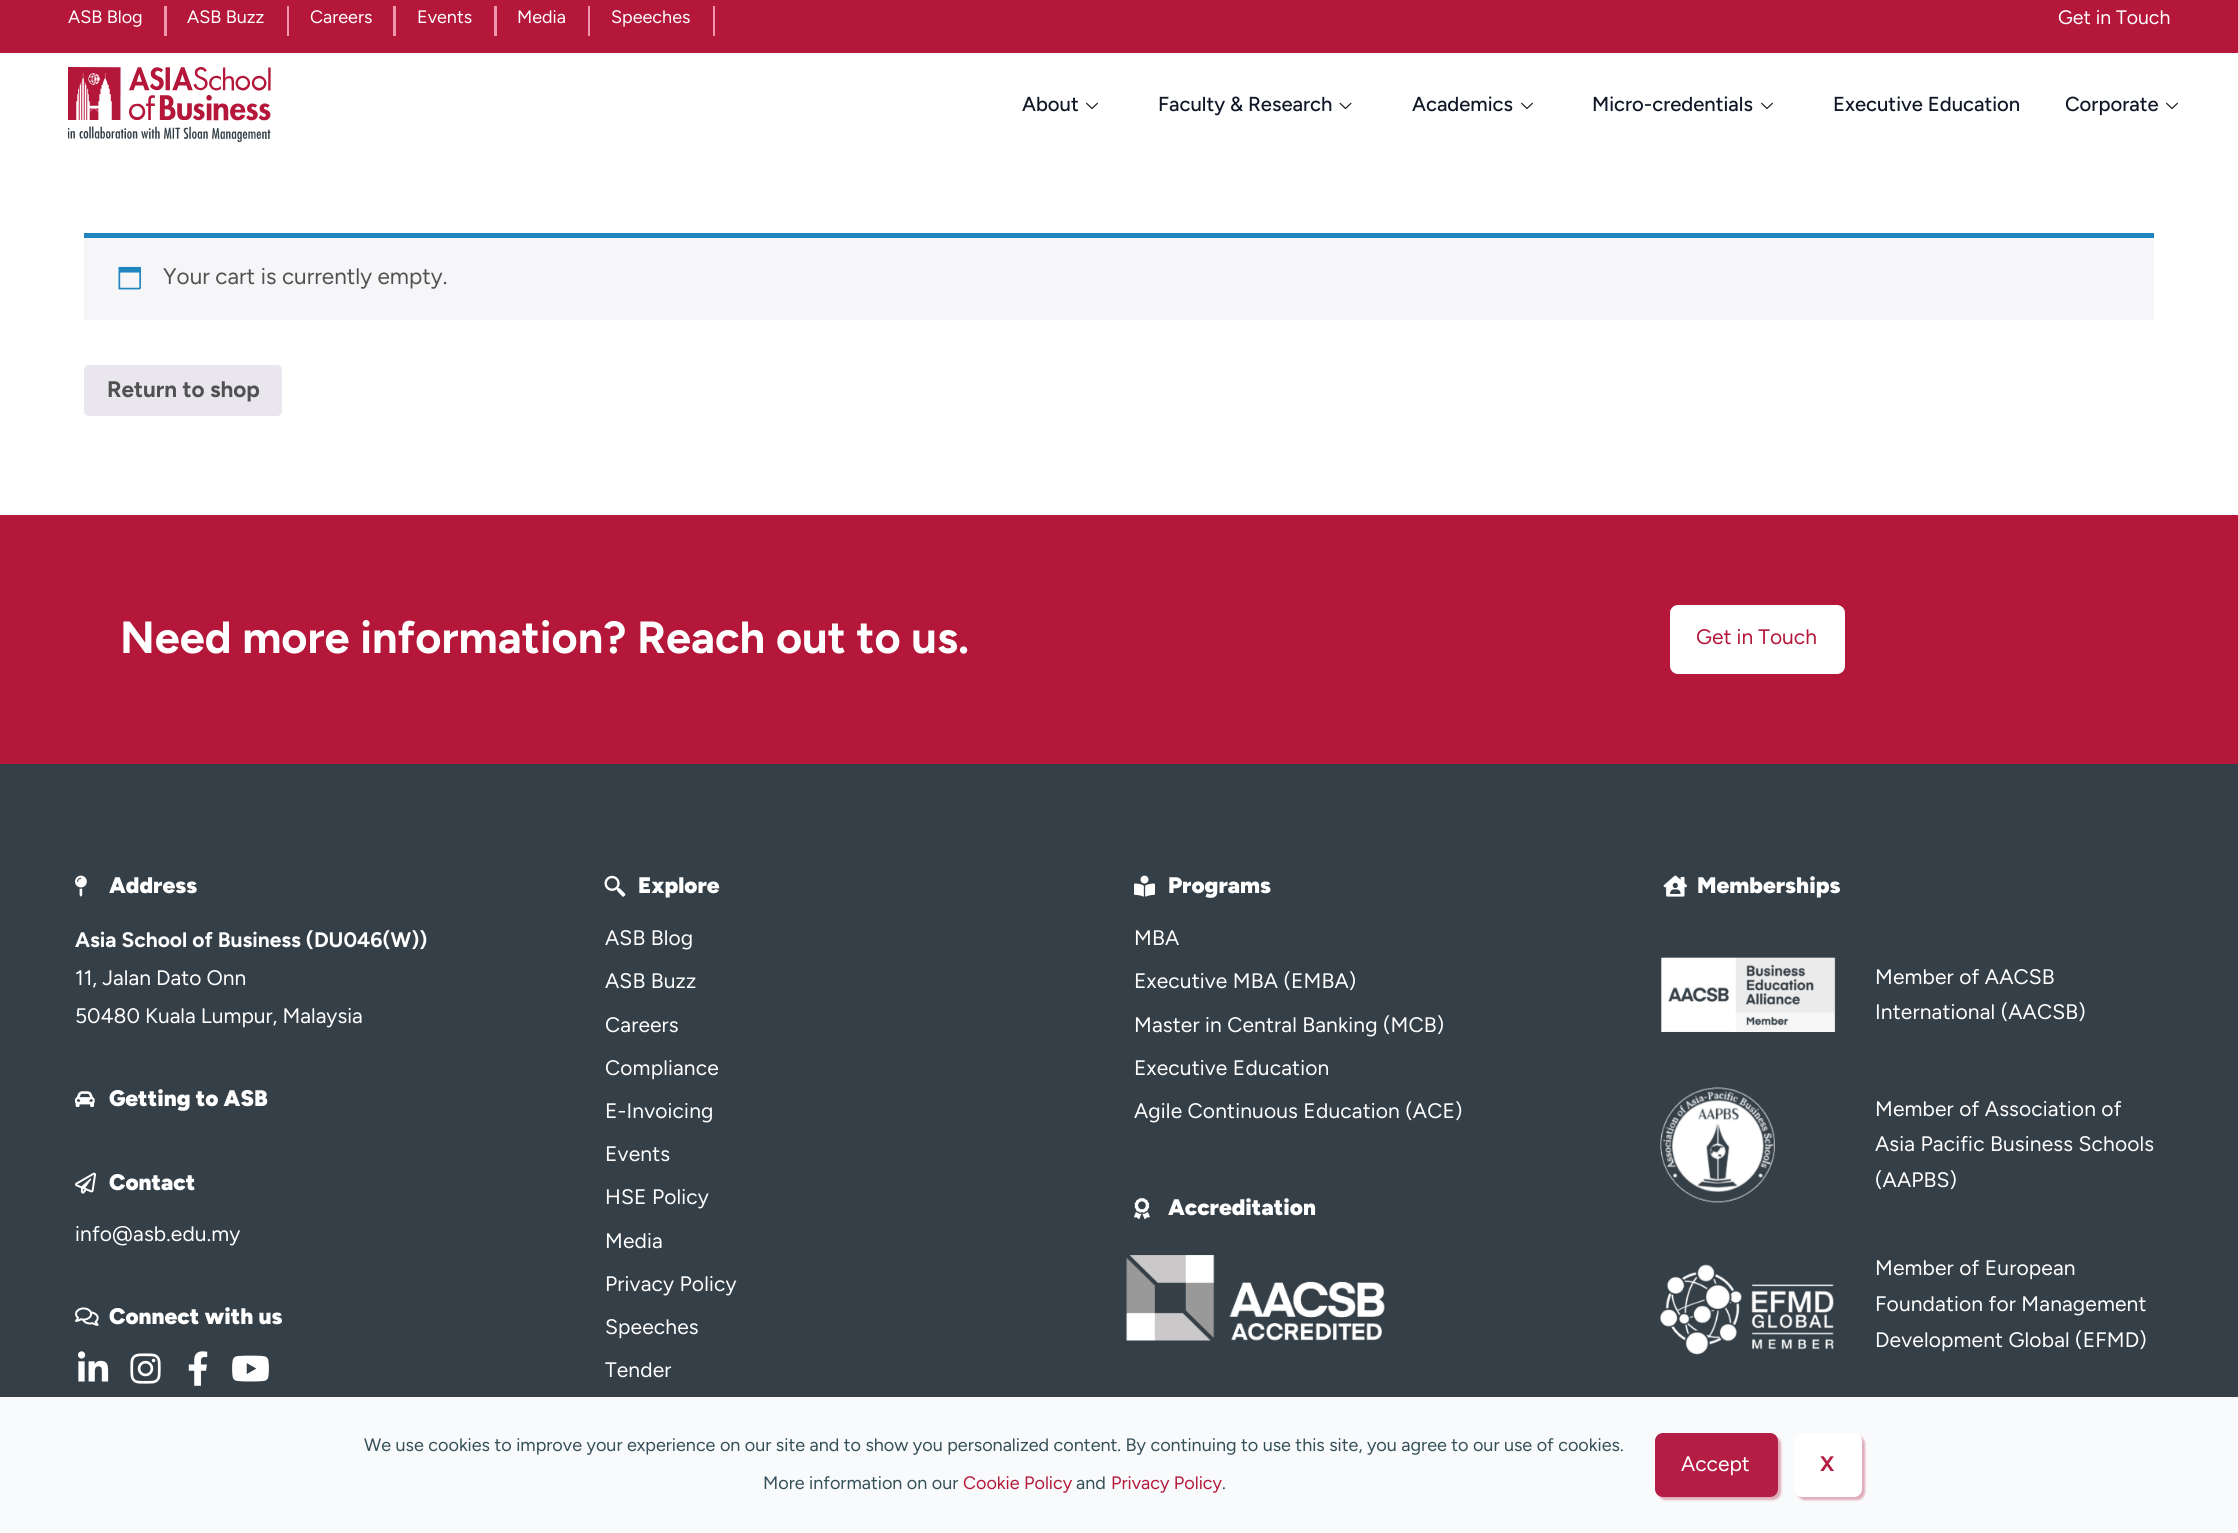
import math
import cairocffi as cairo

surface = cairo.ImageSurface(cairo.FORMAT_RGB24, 2238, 1533)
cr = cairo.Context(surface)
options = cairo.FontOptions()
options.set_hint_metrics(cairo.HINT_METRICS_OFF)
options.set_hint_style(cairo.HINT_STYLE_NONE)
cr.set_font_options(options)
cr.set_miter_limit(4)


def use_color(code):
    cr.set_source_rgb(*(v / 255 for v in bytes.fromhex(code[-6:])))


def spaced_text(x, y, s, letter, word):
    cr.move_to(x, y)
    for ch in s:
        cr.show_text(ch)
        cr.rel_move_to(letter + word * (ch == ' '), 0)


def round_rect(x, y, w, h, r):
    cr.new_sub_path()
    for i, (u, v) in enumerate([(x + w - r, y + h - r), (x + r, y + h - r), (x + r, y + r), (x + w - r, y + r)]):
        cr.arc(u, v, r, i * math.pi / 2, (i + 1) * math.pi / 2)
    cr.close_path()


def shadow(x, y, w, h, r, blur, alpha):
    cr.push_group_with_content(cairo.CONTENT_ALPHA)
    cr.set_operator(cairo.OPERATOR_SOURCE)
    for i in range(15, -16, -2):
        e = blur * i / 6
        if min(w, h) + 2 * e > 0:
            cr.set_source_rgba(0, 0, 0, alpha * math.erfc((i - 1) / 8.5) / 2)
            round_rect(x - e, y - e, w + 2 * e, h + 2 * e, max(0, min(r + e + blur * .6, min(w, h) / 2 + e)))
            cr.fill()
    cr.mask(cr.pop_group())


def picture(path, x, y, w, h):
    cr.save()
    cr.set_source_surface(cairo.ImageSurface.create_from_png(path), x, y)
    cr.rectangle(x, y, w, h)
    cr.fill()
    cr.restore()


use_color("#ffffff")
cr.paint()
use_color("#b4173a")
cr.rectangle(0, 0, 2238, 53)
cr.fill()
cr.select_font_face("Figtree")
cr.set_font_size(18)
use_color("#ffffff")
cr.move_to(68, 23)
cr.show_text("ASB Blog")
use_color("#ed96ae")
cr.rectangle(164, 6, 3, 30)
cr.fill()
use_color("#ffffff")
cr.move_to(187, 23)
cr.show_text("ASB Buzz")
use_color("#ed96ae")
cr.rectangle(287, 6, 2, 30)
cr.fill()
use_color("#ffffff")
cr.move_to(310, 23)
cr.show_text("Careers")
use_color("#ed96ae")
cr.rectangle(393, 6, 3, 30)
cr.fill()
use_color("#ffffff")
cr.move_to(417, 23)
cr.show_text("Events")
use_color("#ed96ae")
cr.rectangle(494, 6, 3, 30)
cr.fill()
use_color("#ffffff")
cr.move_to(517, 23)
cr.show_text("Media")
use_color("#ed96ae")
cr.rectangle(588, 6, 2, 30)
cr.fill()
use_color("#ffffff")
cr.move_to(611, 23)
cr.show_text("Speeches")
use_color("#ed96ae")
cr.rectangle(713, 6, 2, 30)
cr.fill()
cr.set_font_size(19.5)
use_color("#ffffff")
cr.move_to(2058, 24)
cr.show_text("Get in Touch")
picture("img1.png", 68, 67, 203, 75)
cr.select_font_face("Figtree Medium")
cr.set_font_size(20.25)
use_color("#101828")
cr.move_to(1022, 111)
cr.show_text("About")
picture("img2.png", 1086, 102, 12, 7)
cr.move_to(1158, 111)
cr.show_text("Faculty & Research")
picture("img3.png", 1339, 102, 13, 7)
cr.move_to(1412, 111)
cr.show_text("Academics")
picture("img2.png", 1521, 102, 12, 7)
cr.move_to(1592, 111)
cr.show_text("Micro-credentials")
picture("img2.png", 1761, 102, 12, 7)
cr.move_to(1833, 111)
cr.show_text("Executive Education")
cr.move_to(2065, 111)
cr.show_text("Corporate")
picture("img2.png", 2166, 102, 12, 7)
use_color("#f6f5f8")
cr.rectangle(84, 238, 2070, 82)
cr.fill()
use_color("#1e85be")
cr.rectangle(84, 233, 2070, 5)
cr.fill()
picture("img4.png", 118, 266, 23, 24)
cr.select_font_face("Figtree")
cr.set_font_size(22.5)
use_color("#515151")
cr.move_to(163, 284)
cr.show_text("Your cart is currently empty.")
use_color("#e9e6ed")
round_rect(84, 365, 198, 51, 5)
cr.fill()
cr.select_font_face("Figtree", cairo.FONT_SLANT_NORMAL, cairo.FONT_WEIGHT_BOLD)
use_color("#515151")
cr.move_to(107, 397)
cr.show_text("Return to shop")
use_color("#b4173a")
cr.rectangle(0, 515, 2238, 249)
cr.fill()
cr.set_font_size(45)
use_color("#ffffff")
cr.move_to(120, 653)
cr.show_text("Need more information? Reach out to us.")
round_rect(1670, 605, 175, 69, 8)
cr.fill()
cr.select_font_face("Figtree")
cr.set_font_size(21)
use_color("#b4173a")
cr.move_to(1696, 644)
cr.show_text("Get in Touch")
use_color("#343f47")
cr.rectangle(0, 764, 2238, 633)
cr.fill()
picture("img5.png", 75, 875, 12, 22)
cr.select_font_face("Figtree Black")
cr.set_font_size(22.5)
use_color("#ffffff")
cr.move_to(109, 893)
cr.show_text("Address")
cr.select_font_face("Figtree", cairo.FONT_SLANT_NORMAL, cairo.FONT_WEIGHT_BOLD)
cr.set_font_size(21)
cr.move_to(75, 947)
cr.show_text("Asia School of Business (DU046(W))")
cr.select_font_face("Figtree")
cr.move_to(75, 985)
cr.show_text("11, Jalan Dato Onn")
cr.move_to(75, 1023)
cr.show_text("50480 Kuala Lumpur, Malaysia")
picture("img6.png", 75, 1091, 20, 16)
cr.select_font_face("Figtree Black")
cr.set_font_size(22.5)
cr.move_to(109, 1106)
cr.show_text("Getting to ASB")
picture("img7.png", 75, 1172, 22, 22)
cr.move_to(109, 1190)
cr.show_text("Contact")
cr.select_font_face("Figtree")
cr.set_font_size(21)
spaced_text(75, 1241, "info@asb.edu.my", 0.15, 0)
picture("img8.png", 75, 1307, 24, 19)
cr.select_font_face("Figtree Black")
cr.set_font_size(22.5)
cr.move_to(109, 1324)
cr.show_text("Connect with us")
picture("img9.png", 77, 1351, 32, 31)
picture("img10.png", 130, 1353, 31, 31)
picture("img11.png", 188, 1351, 20, 35)
picture("img12.png", 232, 1355, 37, 27)
picture("img13.png", 604, 875, 22, 22)
cr.move_to(638, 893)
cr.show_text("Explore")
cr.select_font_face("Figtree")
cr.set_font_size(21)
spaced_text(605, 945, "ASB Blog", 0.15, 0)
spaced_text(605, 988, "ASB Buzz", 0.15, 0)
spaced_text(605, 1032, "Careers", 0.15, 0)
spaced_text(605, 1075, "Compliance", 0.15, 0)
spaced_text(605, 1118, "E-Invoicing", 0.15, 0)
spaced_text(605, 1161, "Events", 0.15, 0)
spaced_text(605, 1204, "HSE Policy", 0.15, 0)
spaced_text(605, 1248, "Media", 0.15, 0)
spaced_text(605, 1291, "Privacy Policy", 0.15, 0)
spaced_text(605, 1334, "Speeches", 0.15, 0)
spaced_text(605, 1377, "Tender", 0.15, 0)
picture("img14.png", 1134, 875, 21, 22)
cr.select_font_face("Figtree Black")
cr.set_font_size(22.5)
cr.move_to(1168, 893)
cr.show_text("Programs")
cr.select_font_face("Figtree")
cr.set_font_size(21)
spaced_text(1134, 945, "MBA", 0.15, 0)
spaced_text(1134, 988, "Executive MBA (EMBA)", 0.15, 0)
spaced_text(1134, 1032, "Master in Central Banking (MCB)", 0.15, 0)
spaced_text(1134, 1075, "Executive Education", 0.15, 0)
spaced_text(1134, 1118, "Agile Continuous Education (ACE)", 0.15, 0)
picture("img15.png", 1134, 1198, 16, 22)
cr.select_font_face("Figtree Black")
cr.set_font_size(22.5)
cr.move_to(1168, 1215)
cr.show_text("Accreditation")
picture("img16.png", 1126, 1255, 259, 86)
picture("img17.png", 1663, 875, 25, 22)
cr.move_to(1697, 893)
cr.show_text("Memberships")
picture("img18.png", 1661, 957, 175, 75)
cr.select_font_face("Figtree")
cr.set_font_size(21)
spaced_text(1875, 984, "Member of AACSB", 0.15, 0)
spaced_text(1875, 1019, "International (AACSB)", 0.15, 0)
picture("img19.png", 1660, 1087, 115, 116)
spaced_text(1875, 1116, "Member of Association of", 0.15, 0)
spaced_text(1875, 1151, "Asia Pacific Business Schools", 0.15, 0)
spaced_text(1875, 1187, "(AAPBS)", 0.15, 0)
picture("img20.png", 1660, 1264, 174, 91)
spaced_text(1875, 1275, "Member of European", 0.15, 0)
spaced_text(1875, 1311, "Foundation for Management", 0.15, 0)
spaced_text(1875, 1347, "Development Global (EFMD)", 0.15, 0)
use_color("#f9fafb")
cr.rectangle(0, 1397, 2238, 136)
cr.fill()
cr.set_font_size(18)
use_color("#334f57")
cr.move_to(364, 1451)
cr.show_text("We use cookies to improve your experience on our site and to show you personalized content. By continuing to use this site, you agree to our use of cookies.")
cr.move_to(763, 1489)
cr.show_text("More information on our")
use_color("#b4173a")
cr.move_to(963, 1489)
cr.show_text("Cookie Policy")
use_color("#334f57")
cr.move_to(1076, 1489)
cr.show_text("and")
use_color("#b4173a")
cr.move_to(1111, 1489)
cr.show_text("Privacy Policy")
use_color("#334f57")
cr.move_to(1222, 1489)
cr.show_text(".")
use_color("#b41e45")
shadow(1658, 1436, 123, 64, 8, 1, 0.36)
use_color("#b41e45")
round_rect(1655, 1433, 123, 64, 8)
cr.fill()
cr.set_font_size(21)
use_color("#ffffff")
cr.move_to(1681, 1471)
cr.show_text("Accept")
use_color("#b41e45")
shadow(1797, 1436, 68, 64, 8, 1, 0.36)
use_color("#ffffff")
round_rect(1794, 1433, 68, 64, 8)
cr.fill()
cr.select_font_face("Figtree", cairo.FONT_SLANT_NORMAL, cairo.FONT_WEIGHT_BOLD)
use_color("#b41e45")
cr.move_to(1820, 1471)
cr.show_text("X")
surface.write_to_png("result.png")
